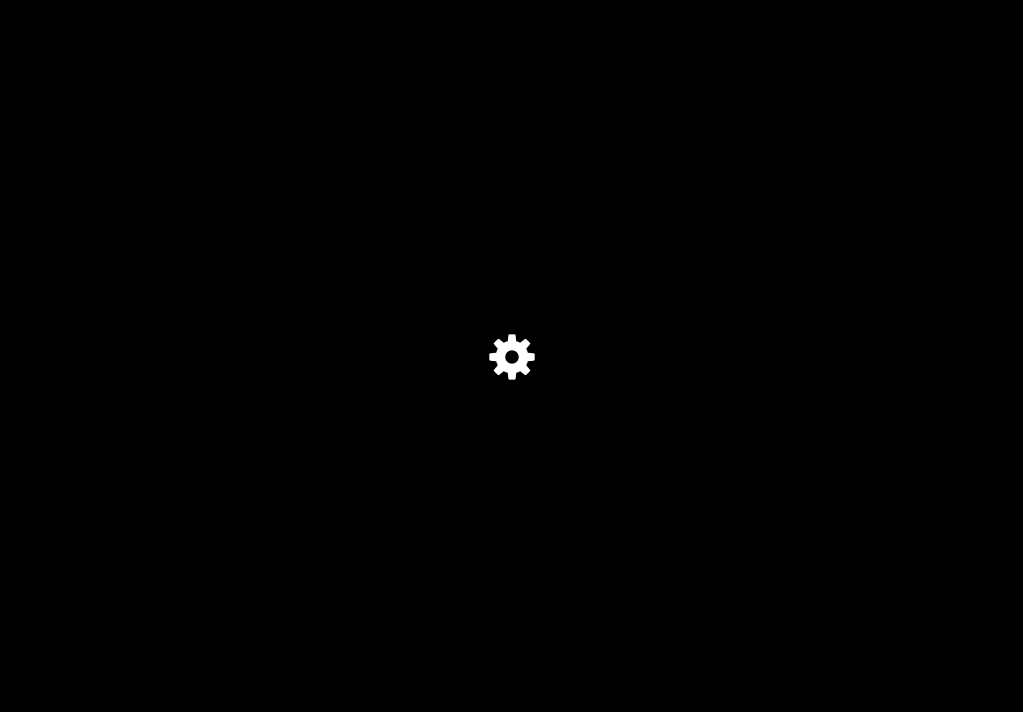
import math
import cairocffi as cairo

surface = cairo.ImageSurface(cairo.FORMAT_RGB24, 1023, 712)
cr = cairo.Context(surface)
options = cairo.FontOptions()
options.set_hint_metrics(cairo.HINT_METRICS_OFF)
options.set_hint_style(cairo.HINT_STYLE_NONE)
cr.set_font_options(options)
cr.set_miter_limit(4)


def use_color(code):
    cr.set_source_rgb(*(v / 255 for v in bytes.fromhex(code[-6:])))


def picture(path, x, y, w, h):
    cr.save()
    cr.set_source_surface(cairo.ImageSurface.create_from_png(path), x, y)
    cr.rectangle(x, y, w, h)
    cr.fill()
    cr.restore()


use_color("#000000")
cr.paint()
picture("img1.png", 489, 334, 46, 46)
surface.write_to_png("result.png")
